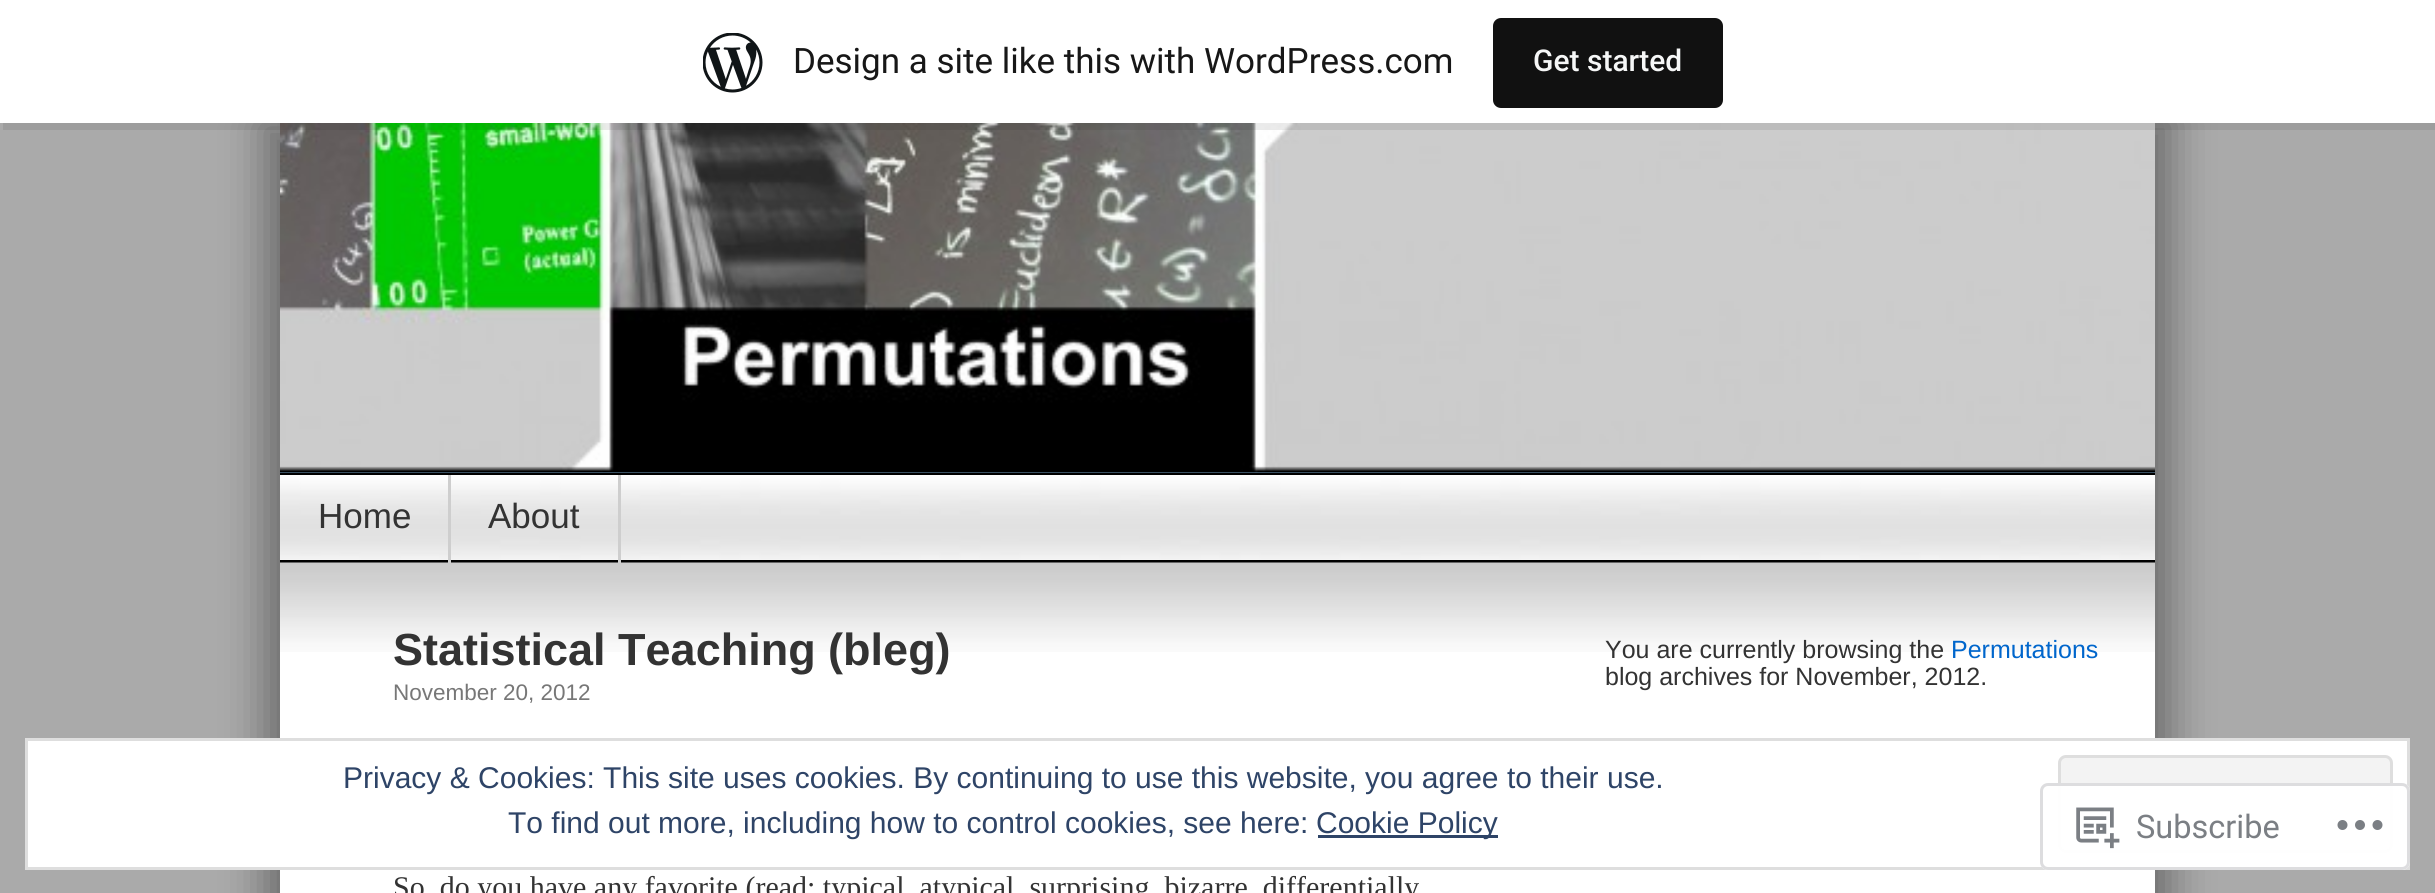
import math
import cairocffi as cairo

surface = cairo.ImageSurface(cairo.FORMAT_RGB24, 2435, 893)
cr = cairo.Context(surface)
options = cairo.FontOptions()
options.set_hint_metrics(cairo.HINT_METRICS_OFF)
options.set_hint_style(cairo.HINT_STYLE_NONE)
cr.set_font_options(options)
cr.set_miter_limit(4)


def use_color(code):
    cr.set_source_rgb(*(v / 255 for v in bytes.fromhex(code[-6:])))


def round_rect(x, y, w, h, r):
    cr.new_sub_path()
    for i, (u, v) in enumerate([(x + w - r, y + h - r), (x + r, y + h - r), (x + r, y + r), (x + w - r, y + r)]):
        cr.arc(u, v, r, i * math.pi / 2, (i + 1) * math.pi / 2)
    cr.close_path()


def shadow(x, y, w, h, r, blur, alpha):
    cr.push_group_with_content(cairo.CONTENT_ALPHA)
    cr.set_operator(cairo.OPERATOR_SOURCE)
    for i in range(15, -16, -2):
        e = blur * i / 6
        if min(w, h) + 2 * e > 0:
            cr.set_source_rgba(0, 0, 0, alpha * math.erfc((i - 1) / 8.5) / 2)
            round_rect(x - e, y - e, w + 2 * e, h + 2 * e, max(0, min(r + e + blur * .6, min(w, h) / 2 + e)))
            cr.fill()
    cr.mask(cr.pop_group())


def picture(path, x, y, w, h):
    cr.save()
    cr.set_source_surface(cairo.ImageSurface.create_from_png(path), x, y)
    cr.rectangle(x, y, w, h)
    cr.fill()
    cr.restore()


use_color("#aaaaaa")
cr.paint()
use_color("#000000")
shadow(260, 123, 1875, 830, 0, 20, 0.3)
shadow(300, 118, 1875, 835, 0, 20, 0.3)
use_color("#73a0c5")
cr.rectangle(280, 472, 1875, 1)
cr.fill()
picture("img2.png", 280, 123, 1875, 350)
cr.set_source_rgba(0, 0, 0, 0.08)
cr.new_path()
cr.move_to(3, 122)
cr.line_to(3, 130)
cr.line_to(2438, 130)
cr.line_to(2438, 8)
cr.line_to(2435, 8)
cr.line_to(2435, 122)
cr.close_path()
cr.fill()
use_color("#ffffff")
cr.rectangle(0, 0, 2435, 123)
cr.fill()
picture("img1.png", 703, 33, 60, 60)
cr.select_font_face("Roboto")
cr.set_font_size(35)
use_color("#171717")
cr.move_to(793, 73)
cr.show_text("Design a site like this with WordPress.com")
use_color("#111111")
round_rect(1493, 18, 230, 90, 8)
cr.fill()
cr.select_font_face("Roboto Medium")
cr.set_font_size(30)
use_color("#f6f7f7")
cr.move_to(1533, 71)
cr.show_text("Get started")
use_color("#ffffff")
cr.rectangle(280, 652, 1875, 241)
cr.fill()
use_color("#000000")
cr.rectangle(280, 473, 1875, 2)
cr.fill()
picture("img3.png", 280, 475, 1875, 85)
cr.rectangle(280, 560, 1875, 3)
cr.fill()
picture("img4.png", 280, 562, 1875, 90)
use_color("#cecece")
cr.rectangle(448, 475, 3, 88)
cr.fill()
cr.select_font_face("Liberation Sans")
cr.set_font_size(35)
use_color("#333333")
cr.move_to(318, 528)
cr.show_text("Home")
use_color("#cecece")
cr.rectangle(618, 475, 3, 88)
cr.fill()
use_color("#333333")
cr.move_to(488, 528)
cr.show_text("About")
cr.select_font_face("Liberation Sans", cairo.FONT_SLANT_NORMAL, cairo.FONT_WEIGHT_BOLD)
cr.set_font_size(45)
cr.move_to(393, 665)
cr.show_text("Statistical Teaching (bleg)")
cr.select_font_face("Liberation Sans")
cr.set_font_size(22.5)
use_color("#777777")
cr.move_to(393, 700)
cr.show_text("November 20, 2012")
cr.select_font_face("Liberation Serif")
cr.set_font_size(30)
use_color("#333333")
cr.move_to(393, 897)
cr.show_text("So, do you have any favorite (read: typical, atypical, surprising, bizarre, differentially")
cr.select_font_face("Liberation Sans")
cr.set_font_size(25)
cr.move_to(1605, 658)
cr.show_text("You are currently browsing the")
use_color("#0066cc")
cr.move_to(1951, 658)
cr.show_text("Permutations")
use_color("#333333")
cr.move_to(1605, 685)
cr.show_text("blog archives for November, 2012.")
use_color("#ffffff")
cr.rectangle(26.5, 739.5, 2382, 129)
cr.fill_preserve()
use_color("#dedede")
cr.set_line_width(3)
cr.stroke()
cr.set_font_size(30)
use_color("#2e4467")
cr.move_to(343, 788)
cr.show_text("Privacy & Cookies: This site uses cookies. By continuing to use this website, you agree to their use.")
use_color("#f3f3f3")
round_rect(2059.5, 756.5, 332, 95, 6.5)
cr.fill_preserve()
use_color("#dedede")
cr.stroke()
use_color("#2e4467")
cr.move_to(508, 833)
cr.show_text("To find out more, including how to control cookies, see here:")
cr.rectangle(1318, 835, 180, 3)
cr.fill()
cr.move_to(1316, 833)
cr.show_text("Cookie Policy")
cr.set_source_rgba(1, 1, 1, 0.98)
round_rect(2040, 783, 370, 87, 8)
cr.fill()
round_rect(2041.5, 784.5, 367, 84, 6.5)
cr.set_source_rgba(0.863, 0.863, 0.871, 0.98)
cr.stroke()
picture("img5.png", 2076, 807, 44, 42)
cr.select_font_face("Roboto")
cr.set_font_size(32.5)
use_color("#7b7f84")
cr.move_to(2136, 838)
cr.show_text("Subscribe")
picture("img6.png", 2337, 820, 46, 10)
surface.write_to_png("result.png")
